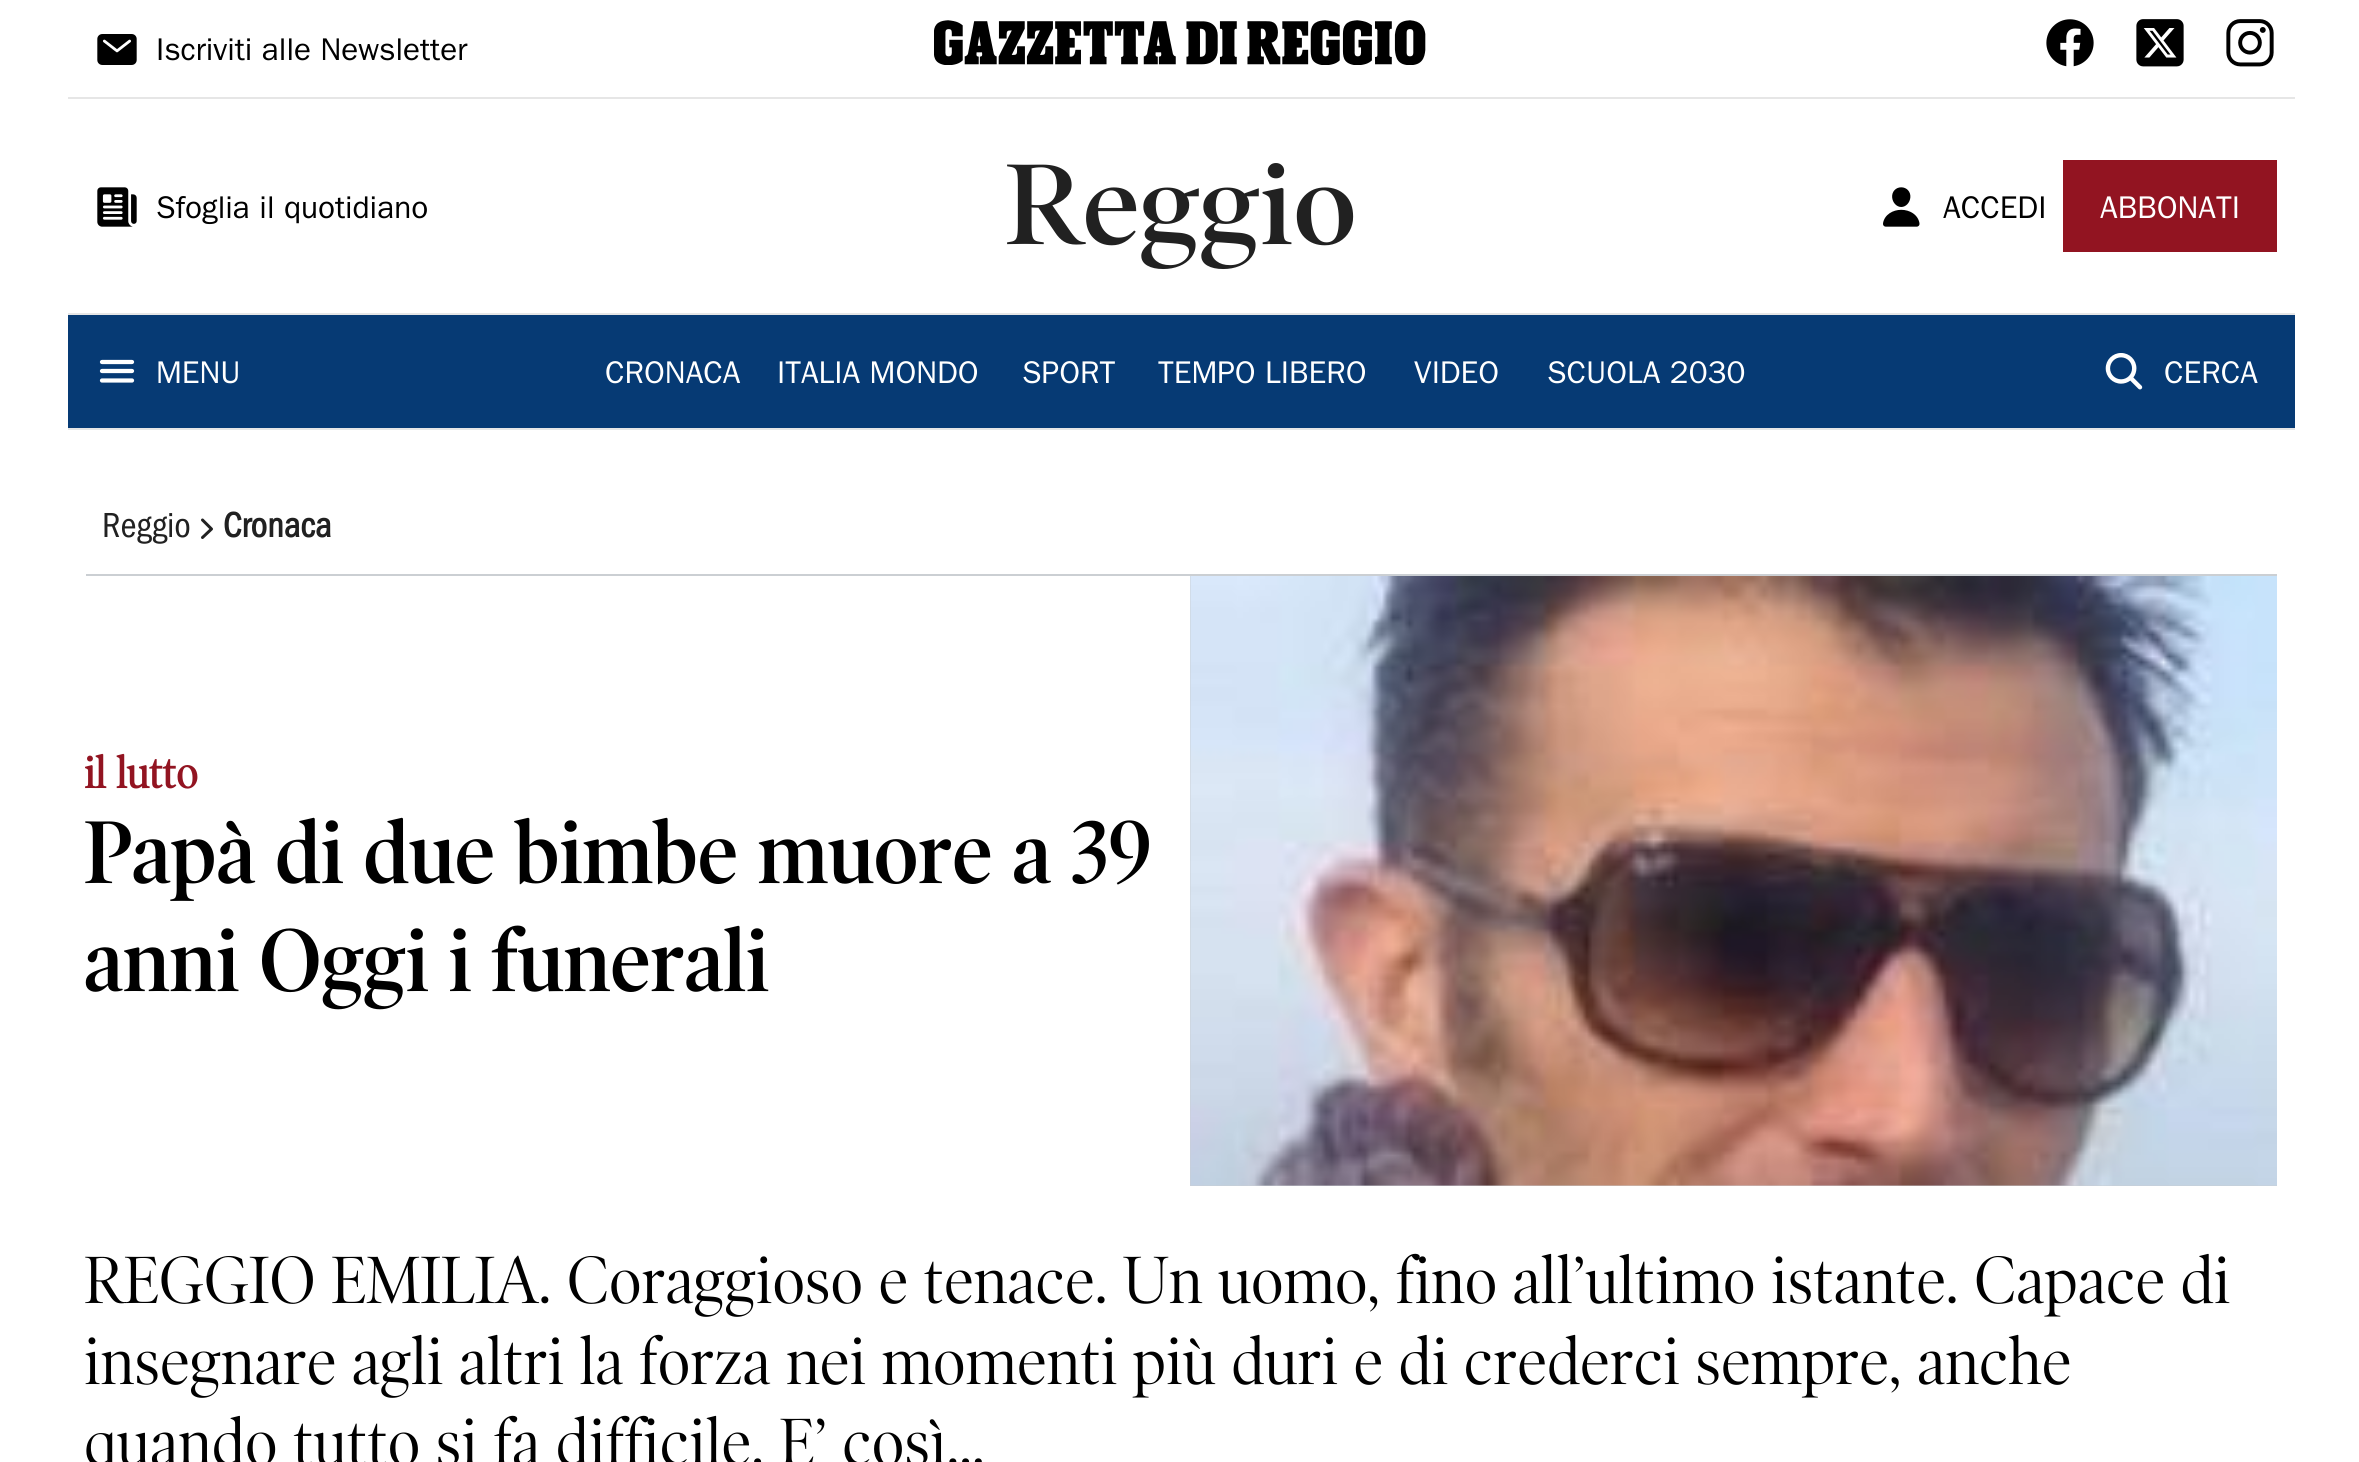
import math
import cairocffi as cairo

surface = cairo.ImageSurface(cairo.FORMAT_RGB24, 2359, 1462)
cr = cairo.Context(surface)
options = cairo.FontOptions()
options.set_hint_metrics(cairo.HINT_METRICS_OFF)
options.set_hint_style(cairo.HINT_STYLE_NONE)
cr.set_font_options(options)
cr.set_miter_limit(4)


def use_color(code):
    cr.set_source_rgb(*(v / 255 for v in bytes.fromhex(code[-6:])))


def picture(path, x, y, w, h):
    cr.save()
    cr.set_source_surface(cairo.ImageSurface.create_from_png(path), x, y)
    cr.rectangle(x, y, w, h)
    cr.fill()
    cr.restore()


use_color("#ffffff")
cr.paint()
use_color("#e6e6e6")
cr.rectangle(68, 97, 2227, 2)
cr.fill()
picture("img1.png", 97, 34, 40, 31)
cr.select_font_face("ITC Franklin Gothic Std")
cr.set_font_size(31.5)
use_color("#000000")
cr.move_to(156, 60)
cr.show_text("Iscriviti alle Newsletter")
picture("img2.png", 934, 20, 492, 45)
picture("img3.png", 2046, 19, 48, 48)
picture("img4.png", 2136, 19, 48, 48)
picture("img5.png", 2226, 19, 48, 48)
use_color("#e6e6e6")
cr.rectangle(68, 313, 2227, 2)
cr.fill()
picture("img6.png", 97, 187, 40, 40)
use_color("#000000")
cr.move_to(156, 218)
cr.show_text("Sfoglia il quotidiano")
cr.select_font_face("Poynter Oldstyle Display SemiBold")
cr.set_font_size(116)
use_color("#212121")
cr.move_to(1005, 244)
cr.show_text("Reggio")
picture("img7.png", 1883, 187, 37, 40)
cr.select_font_face("ITC Franklin Gothic Std")
cr.set_font_size(31.5)
use_color("#000000")
cr.move_to(1943, 218)
cr.show_text("ACCEDI")
use_color("#921421")
cr.rectangle(2063, 160, 214, 92)
cr.fill()
use_color("#ffffff")
cr.move_to(2100, 218)
cr.show_text("ABBONATI")
use_color("#063a74")
cr.rectangle(68, 315, 2227, 113)
cr.fill()
use_color("#e6e6e6")
cr.rectangle(68, 428, 2227, 2)
cr.fill()
cr.new_path()
cr.move_to(102, 362)
cr.line_to(132, 362)
cr.move_to(102, 371)
cr.line_to(132, 371)
cr.move_to(102, 380.5)
cr.line_to(132, 380.5)
use_color("#ffffff")
cr.set_line_width(4.2)
cr.set_line_cap(cairo.LINE_CAP_ROUND)
cr.stroke()
cr.move_to(156, 383)
cr.show_text("MENU")
cr.move_to(605, 383)
cr.show_text("CRONACA")
cr.move_to(777, 383)
cr.show_text("ITALIA MONDO")
cr.move_to(1022, 383)
cr.show_text("SPORT")
cr.move_to(1158, 383)
cr.show_text("TEMPO LIBERO")
cr.move_to(1414, 383)
cr.show_text("VIDEO")
cr.move_to(1547, 383)
cr.show_text("SCUOLA 2030")
picture("img8.png", 2105, 353, 38, 37)
cr.move_to(2164, 383)
cr.show_text("CERCA")
use_color("#cbcfd3")
cr.rectangle(86, 574, 2191, 2)
cr.fill()
cr.select_font_face("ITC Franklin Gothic")
cr.set_font_size(36)
use_color("#212121")
cr.move_to(102, 537)
cr.show_text("Reggio")
cr.new_path()
cr.move_to(202.5, 520)
cr.line_to(211.5, 529)
cr.line_to(202.5, 537.5)
cr.set_line_width(3)
cr.set_line_join(cairo.LINE_JOIN_ROUND)
cr.stroke()
cr.select_font_face("ITC Franklin Gothic", cairo.FONT_SLANT_NORMAL, cairo.FONT_WEIGHT_BOLD)
cr.move_to(223, 537)
cr.show_text("Cronaca")
cr.select_font_face("Poynter Oldstyle Display", cairo.FONT_SLANT_NORMAL, cairo.FONT_WEIGHT_BOLD)
cr.set_font_size(45)
use_color("#921421")
cr.move_to(84, 788)
cr.show_text("il lutto")
cr.select_font_face("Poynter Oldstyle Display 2 SemiBold")
cr.set_font_size(90)
use_color("#000000")
cr.move_to(84, 883)
cr.show_text("Papà di due bimbe muore a 39")
cr.move_to(84, 991)
cr.show_text("anni Oggi i funerali")
use_color("#cbcfd3")
cr.rectangle(1190, 576, 1087, 610)
cr.fill()
picture("img9.png", 1190, 576, 1087, 610)
cr.select_font_face("Poynter Oldstyle Display")
cr.set_font_size(67.5)
use_color("#000000")
cr.move_to(84, 1303)
cr.show_text("REGGIO EMILIA. Coraggioso e tenace. Un uomo, fino all’ultimo istante. Capace di")
cr.move_to(84, 1384)
cr.show_text("insegnare agli altri la forza nei momenti più duri e di crederci sempre, anche")
cr.move_to(84, 1465)
cr.show_text("quando tutto si fa difficile. E’ così...")
surface.write_to_png("result.png")
